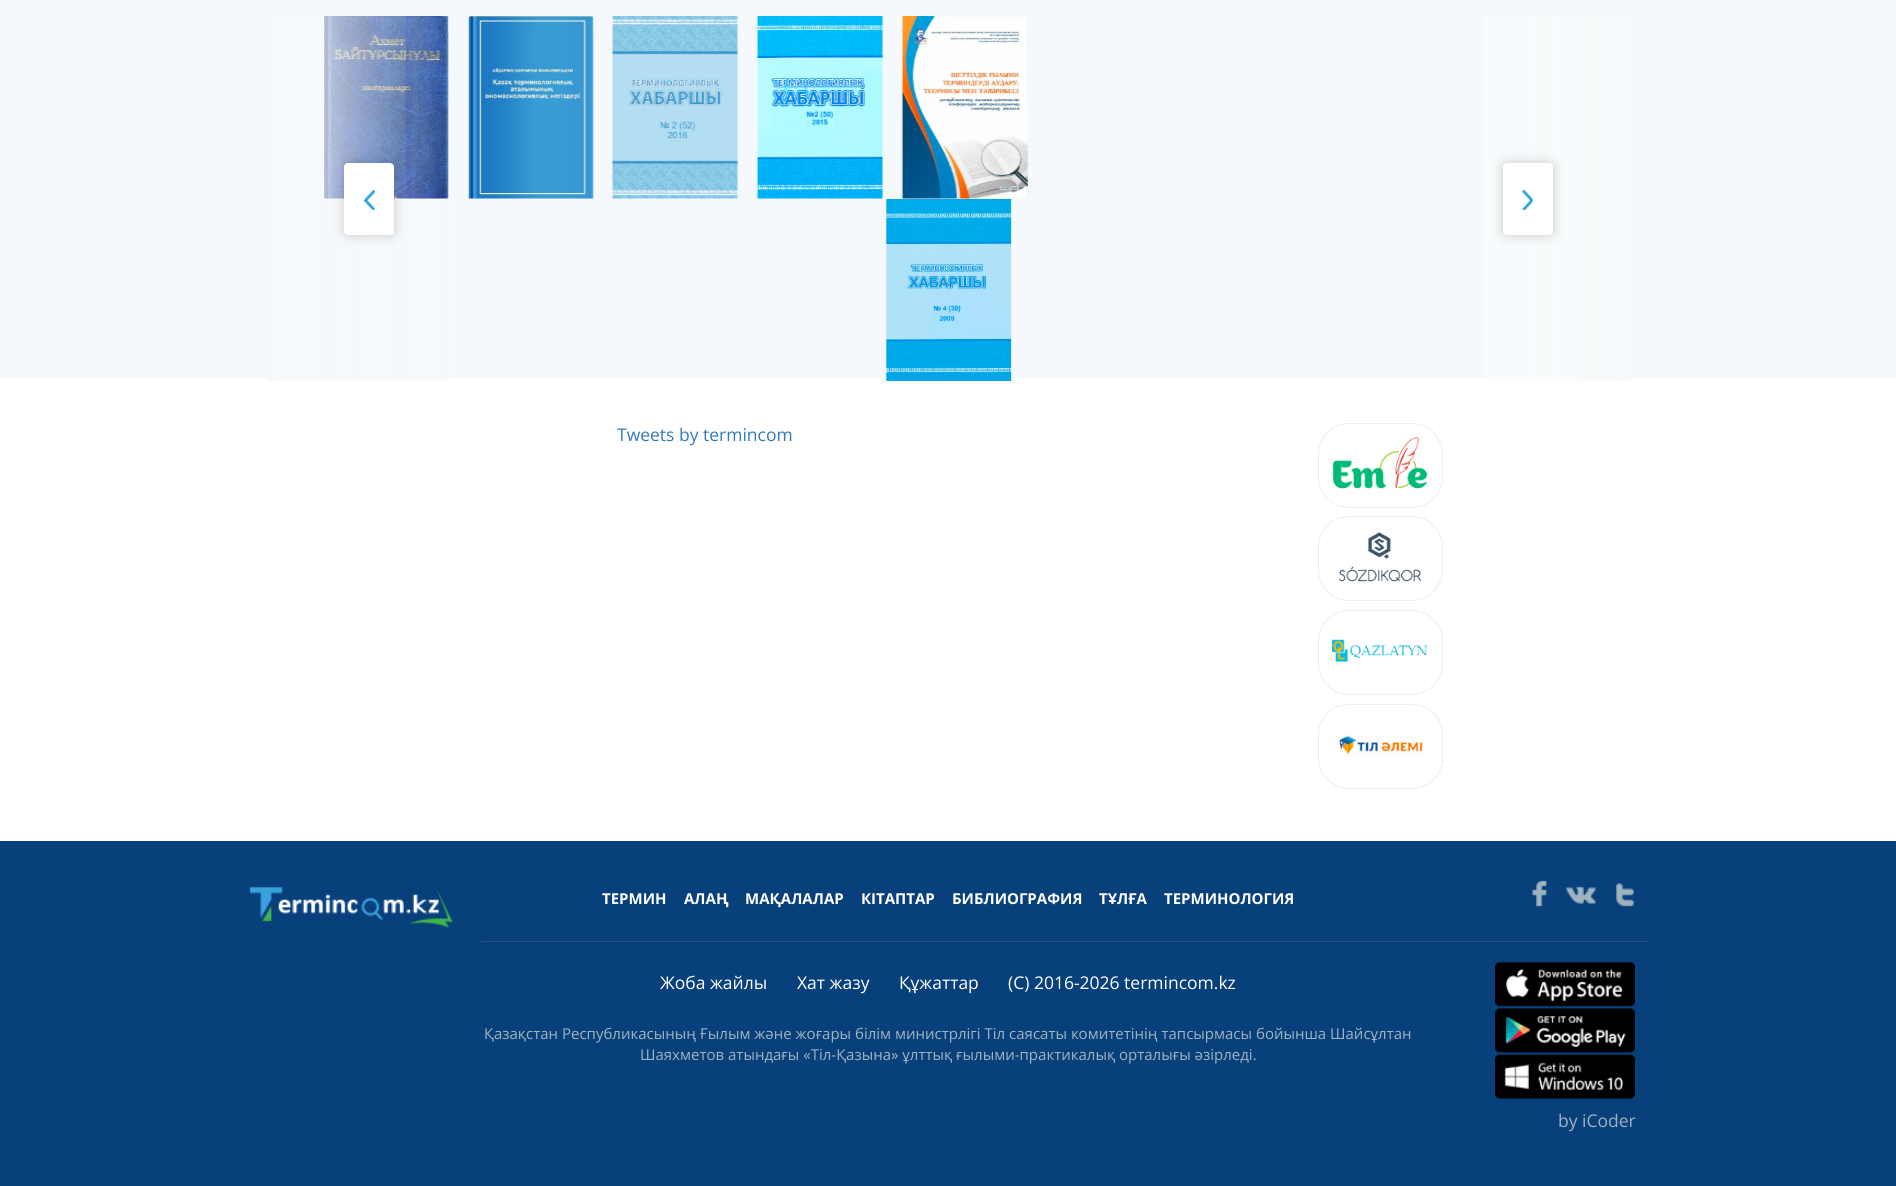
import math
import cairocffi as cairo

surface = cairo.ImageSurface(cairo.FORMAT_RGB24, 1896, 1186)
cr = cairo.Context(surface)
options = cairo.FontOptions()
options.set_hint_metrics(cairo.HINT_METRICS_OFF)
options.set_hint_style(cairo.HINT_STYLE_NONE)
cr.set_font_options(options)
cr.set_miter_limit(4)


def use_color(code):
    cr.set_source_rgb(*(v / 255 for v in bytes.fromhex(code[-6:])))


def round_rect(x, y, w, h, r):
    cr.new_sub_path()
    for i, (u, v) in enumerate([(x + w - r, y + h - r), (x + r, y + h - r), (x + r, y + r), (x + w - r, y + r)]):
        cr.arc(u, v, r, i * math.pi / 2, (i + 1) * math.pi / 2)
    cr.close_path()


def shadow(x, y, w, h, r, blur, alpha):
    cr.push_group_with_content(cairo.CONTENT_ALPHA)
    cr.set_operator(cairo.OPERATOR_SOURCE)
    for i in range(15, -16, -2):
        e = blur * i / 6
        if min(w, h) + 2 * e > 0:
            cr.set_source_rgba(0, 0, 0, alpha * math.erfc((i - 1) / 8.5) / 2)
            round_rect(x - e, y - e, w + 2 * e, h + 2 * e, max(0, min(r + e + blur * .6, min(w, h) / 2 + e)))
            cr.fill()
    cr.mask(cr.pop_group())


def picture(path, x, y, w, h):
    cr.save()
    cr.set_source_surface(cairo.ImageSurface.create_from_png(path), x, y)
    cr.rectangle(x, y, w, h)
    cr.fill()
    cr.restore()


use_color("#ffffff")
cr.paint()
use_color("#f6f9fb")
cr.rectangle(0, 0, 1896, 379)
cr.fill()
picture("img2.png", 324, 16, 125, 183)
gradient = cairo.LinearGradient(268, 199, 471, 199)
gradient.add_color_stop_rgba(0, 0.965, 0.976, 0.984, 1)
gradient.add_color_stop_rgba(1, 0.965, 0.976, 0.984, 0)
cr.set_source(gradient)
cr.rectangle(268, 16, 181, 365)
cr.fill()
use_color("#000000")
shadow(344, 163, 50, 72, 4, 6, 0.2)
use_color("#ffffff")
round_rect(344, 163, 50, 72, 4)
cr.fill()
picture("img1.png", 363, 189, 12, 21)
picture("img3.png", 468, 16, 126, 183)
picture("img4.png", 611, 16, 127, 183)
picture("img5.png", 756, 16, 127, 183)
picture("img6.png", 901, 16, 127, 183)
picture("img7.png", 885, 199, 127, 182)
gradient = cairo.LinearGradient(1425, 199, 1630, 199)
gradient.add_color_stop_rgba(0, 1, 1, 1, 0)
gradient.add_color_stop_rgba(0.01, 1, 1, 1, 0.01)
gradient.add_color_stop_rgba(1, 0.965, 0.976, 0.984, 1)
cr.set_source(gradient)
cr.rectangle(1486, 16, 144, 365)
cr.fill()
use_color("#000000")
shadow(1503, 163, 50, 72, 4, 6, 0.2)
use_color("#ffffff")
round_rect(1503, 163, 50, 72, 4)
cr.fill()
picture("img8.png", 1521, 189, 12, 21)
cr.select_font_face("Open Sans")
cr.set_font_size(17.5)
use_color("#337ab7")
cr.move_to(617, 441)
cr.show_text("Tweets by termincom")
round_rect(1318.5, 423.5, 124, 84, 30.5)
use_color("#eceded")
cr.set_line_width(1)
cr.stroke()
picture("img9.png", 1333, 437, 95, 52)
round_rect(1318.5, 516.5, 124, 84, 30.5)
cr.stroke()
picture("img10.png", 1338, 532, 84, 50)
round_rect(1318.5, 610.5, 124, 84, 30.5)
cr.stroke()
picture("img11.png", 1332, 639, 95, 23)
round_rect(1318.5, 704.5, 124, 84, 30.5)
cr.stroke()
picture("img12.png", 1337, 730, 86, 26)
use_color("#08407b")
cr.rectangle(0, 841, 1896, 345)
cr.fill()
picture("img13.png", 249, 887, 204, 41)
use_color("#215388")
cr.rectangle(481, 941, 1167, 1)
cr.fill()
cr.select_font_face("Open Sans", cairo.FONT_SLANT_NORMAL, cairo.FONT_WEIGHT_BOLD)
cr.set_font_size(15)
use_color("#ffffff")
cr.move_to(602, 904)
cr.show_text("ТЕРМИН")
cr.move_to(684, 904)
cr.show_text("АЛАҢ")
cr.move_to(745, 904)
cr.show_text("МАҚАЛАЛАР")
cr.move_to(861, 904)
cr.show_text("КІТАПТАР")
cr.move_to(952, 904)
cr.show_text("БИБЛИОГРАФИЯ")
cr.move_to(1099, 904)
cr.show_text("ТҰЛҒА")
cr.move_to(1164, 904)
cr.show_text("ТЕРМИНОЛОГИЯ")
cr.select_font_face("Open Sans")
cr.set_font_size(17.5)
cr.move_to(660, 989)
cr.show_text("Жоба жайлы")
cr.move_to(797, 989)
cr.show_text("Хат жазу")
cr.move_to(899, 989)
cr.show_text("Құжаттар")
cr.move_to(1008, 989)
cr.show_text("(C) 2016-2026 termincom.kz")
cr.set_font_size(15)
use_color("#9fb4bf")
cr.move_to(484, 1039)
cr.show_text("Қазақстан Республикасының Ғылым және жоғары білім министрлігі Тіл саясаты комитетінің тапсырмасы бойынша Шайсұлтан")
cr.move_to(640, 1060)
cr.show_text("Шаяхметов атындағы «Тіл-Қазына» ұлттық ғылыми-практикалық орталығы әзірледі.")
picture("img14.png", 1532, 880, 15, 27)
picture("img15.png", 1566, 886, 31, 18)
picture("img16.png", 1616, 883, 18, 24)
picture("img17.png", 1495, 962, 140, 45)
picture("img18.png", 1495, 1008, 140, 45)
picture("img19.png", 1495, 1054, 140, 45)
cr.set_font_size(17.5)
cr.move_to(1558, 1127)
cr.show_text("by iCoder")
surface.write_to_png("result.png")
